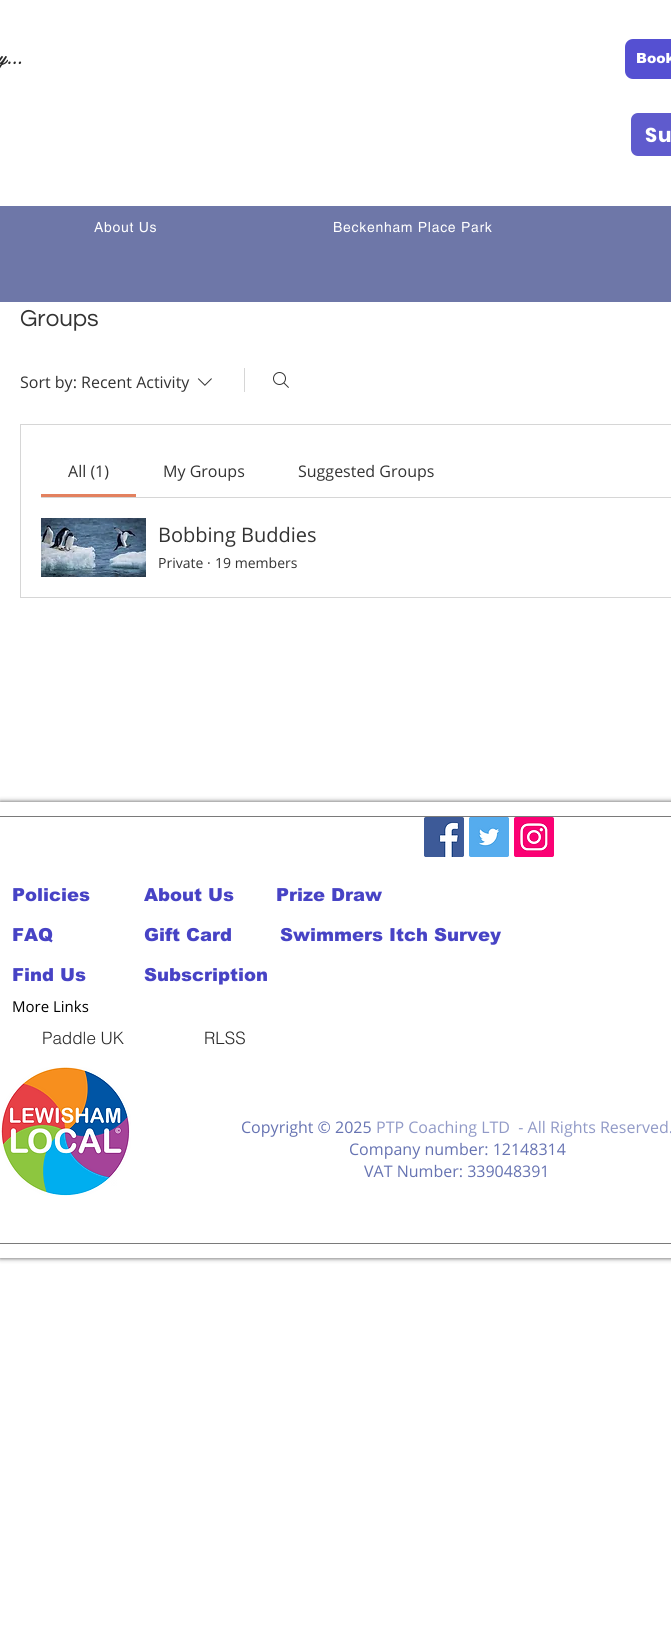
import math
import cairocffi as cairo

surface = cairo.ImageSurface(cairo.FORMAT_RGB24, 671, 1626)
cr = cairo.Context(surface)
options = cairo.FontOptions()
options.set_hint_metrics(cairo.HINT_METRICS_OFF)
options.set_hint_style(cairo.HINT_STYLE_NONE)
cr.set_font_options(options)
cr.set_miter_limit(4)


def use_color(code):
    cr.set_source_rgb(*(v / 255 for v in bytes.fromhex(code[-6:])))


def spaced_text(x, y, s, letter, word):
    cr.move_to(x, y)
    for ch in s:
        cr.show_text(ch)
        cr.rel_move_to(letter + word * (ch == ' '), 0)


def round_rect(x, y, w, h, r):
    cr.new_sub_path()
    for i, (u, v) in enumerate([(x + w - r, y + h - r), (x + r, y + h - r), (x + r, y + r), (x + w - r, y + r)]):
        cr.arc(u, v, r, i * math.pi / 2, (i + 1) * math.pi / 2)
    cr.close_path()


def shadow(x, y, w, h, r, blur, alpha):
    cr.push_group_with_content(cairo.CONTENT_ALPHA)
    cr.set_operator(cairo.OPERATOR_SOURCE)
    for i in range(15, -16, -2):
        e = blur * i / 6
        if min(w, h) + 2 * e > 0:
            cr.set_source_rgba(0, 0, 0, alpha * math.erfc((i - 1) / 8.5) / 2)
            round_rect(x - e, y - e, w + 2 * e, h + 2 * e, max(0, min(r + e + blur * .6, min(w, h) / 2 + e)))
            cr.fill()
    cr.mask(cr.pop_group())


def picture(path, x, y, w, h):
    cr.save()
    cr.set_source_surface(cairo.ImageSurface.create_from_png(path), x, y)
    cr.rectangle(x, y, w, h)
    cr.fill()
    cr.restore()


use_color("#ffffff")
cr.paint()
cr.select_font_face("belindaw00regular")
cr.set_font_size(19)
use_color("#292929")
cr.move_to(-2, 64)
cr.show_text("y...")
use_color("#5550d2")
round_rect(625, 39, 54, 40, 8)
cr.fill()
cr.select_font_face("arial Black")
cr.set_font_size(14)
use_color("#ffffff")
cr.move_to(636, 63)
cr.show_text("Book")
use_color("#5f5bcd")
round_rect(631, 113, 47, 43, 7)
cr.fill()
cr.select_font_face("Poppins", cairo.FONT_SLANT_NORMAL, cairo.FONT_WEIGHT_BOLD)
cr.set_font_size(20)
use_color("#ffffff")
spaced_text(645, 142, "Su", 1, 0)
use_color("#6e77a8")
cr.rectangle(0, 206, 671, 96)
cr.fill()
cr.select_font_face("helvetica")
cr.set_font_size(14)
use_color("#ffffff")
spaced_text(94, 232, "About Us", 0.7, 0)
spaced_text(333, 232, "Beckenham Place Park", 0.7, 0)
cr.select_font_face("Questrial")
cr.set_font_size(24)
use_color("#333333")
cr.move_to(20, 326)
cr.show_text("Groups")
cr.select_font_face("Open Sans")
cr.set_font_size(16)
cr.move_to(20, 388)
cr.show_text("Sort by: Recent Activity")
picture("img1.png", 197, 378, 15, 8)
use_color("#d6d6d6")
cr.rectangle(244, 368, 1, 24)
cr.fill()
picture("img2.png", 273, 372, 16, 16)
cr.rectangle(20.5, 424.5, 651, 173)
cr.set_line_width(1)
cr.stroke()
cr.rectangle(41, 497, 630, 1)
cr.fill()
use_color("#e3815f")
cr.rectangle(41, 494, 95, 3)
cr.fill()
use_color("#333333")
cr.move_to(68, 477)
cr.show_text("All (1)")
cr.move_to(163, 477)
cr.show_text("My Groups")
cr.move_to(298, 477)
cr.show_text("Suggested Groups")
picture("img3.png", 41, 518, 105, 59)
cr.set_font_size(20)
cr.move_to(158, 542)
cr.show_text("Bobbing Buddies")
cr.set_font_size(14)
cr.move_to(158, 568)
cr.show_text("Private")
cr.move_to(207, 568)
cr.show_text("·")
cr.move_to(215, 568)
cr.show_text("19 members")
cr.save()
cr.set_fill_rule(cairo.FILL_RULE_EVEN_ODD)
cr.new_path()
cr.move_to(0, 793)
cr.line_to(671, 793)
cr.line_to(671, 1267)
cr.line_to(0, 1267)
cr.close_path()
cr.move_to(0, 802)
cr.line_to(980, 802)
cr.line_to(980, 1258)
cr.line_to(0, 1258)
cr.close_path()
cr.clip()
use_color("#000000")
shadow(0, 802, 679, 456, 0, 2.5, 0.7)
cr.restore()
use_color("#7a7a7a")
cr.rectangle(0, 816, 671, 1)
cr.fill()
cr.rectangle(0, 1243, 671, 1)
cr.fill()
picture("img4.png", 424, 817, 40, 40)
picture("img5.png", 469, 817, 40, 40)
picture("img6.png", 514, 817, 40, 40)
cr.select_font_face("arial Black")
cr.set_font_size(18)
use_color("#4743c5")
cr.move_to(12, 901)
cr.show_text("Policies")
cr.move_to(144, 901)
cr.show_text("About Us")
cr.move_to(276, 901)
cr.show_text("Prize Draw")
cr.move_to(12, 941)
cr.show_text("FAQ")
cr.move_to(144, 941)
cr.show_text("Gift Card")
cr.move_to(280, 941)
cr.show_text("Swimmers Itch Survey")
cr.move_to(12, 981)
cr.show_text("Find Us")
cr.move_to(144, 981)
cr.show_text("Subscription")
cr.select_font_face("Open Sans")
cr.set_font_size(15)
use_color("#000000")
cr.move_to(12, 1012)
cr.show_text("More Links")
cr.select_font_face("helvetica Light")
cr.set_font_size(17)
use_color("#292929")
cr.move_to(42, 1044)
cr.show_text("Paddle UK")
cr.move_to(204, 1044)
cr.show_text("RLSS")
picture("img7.png", 1, 1067, 130, 129)
cr.select_font_face("Open Sans")
cr.set_font_size(16)
use_color("#6673b2")
cr.move_to(241, 1133)
cr.show_text("Copyright © 2025")
use_color("#919ac7")
cr.move_to(376, 1133)
cr.show_text("PTP Coaching LTD  - All Rights Reserved.")
use_color("#6673b2")
cr.move_to(349, 1155)
cr.show_text("Company number: 12148314")
cr.move_to(364, 1177)
cr.show_text("VAT Number: 339048391")
surface.write_to_png("result.png")
